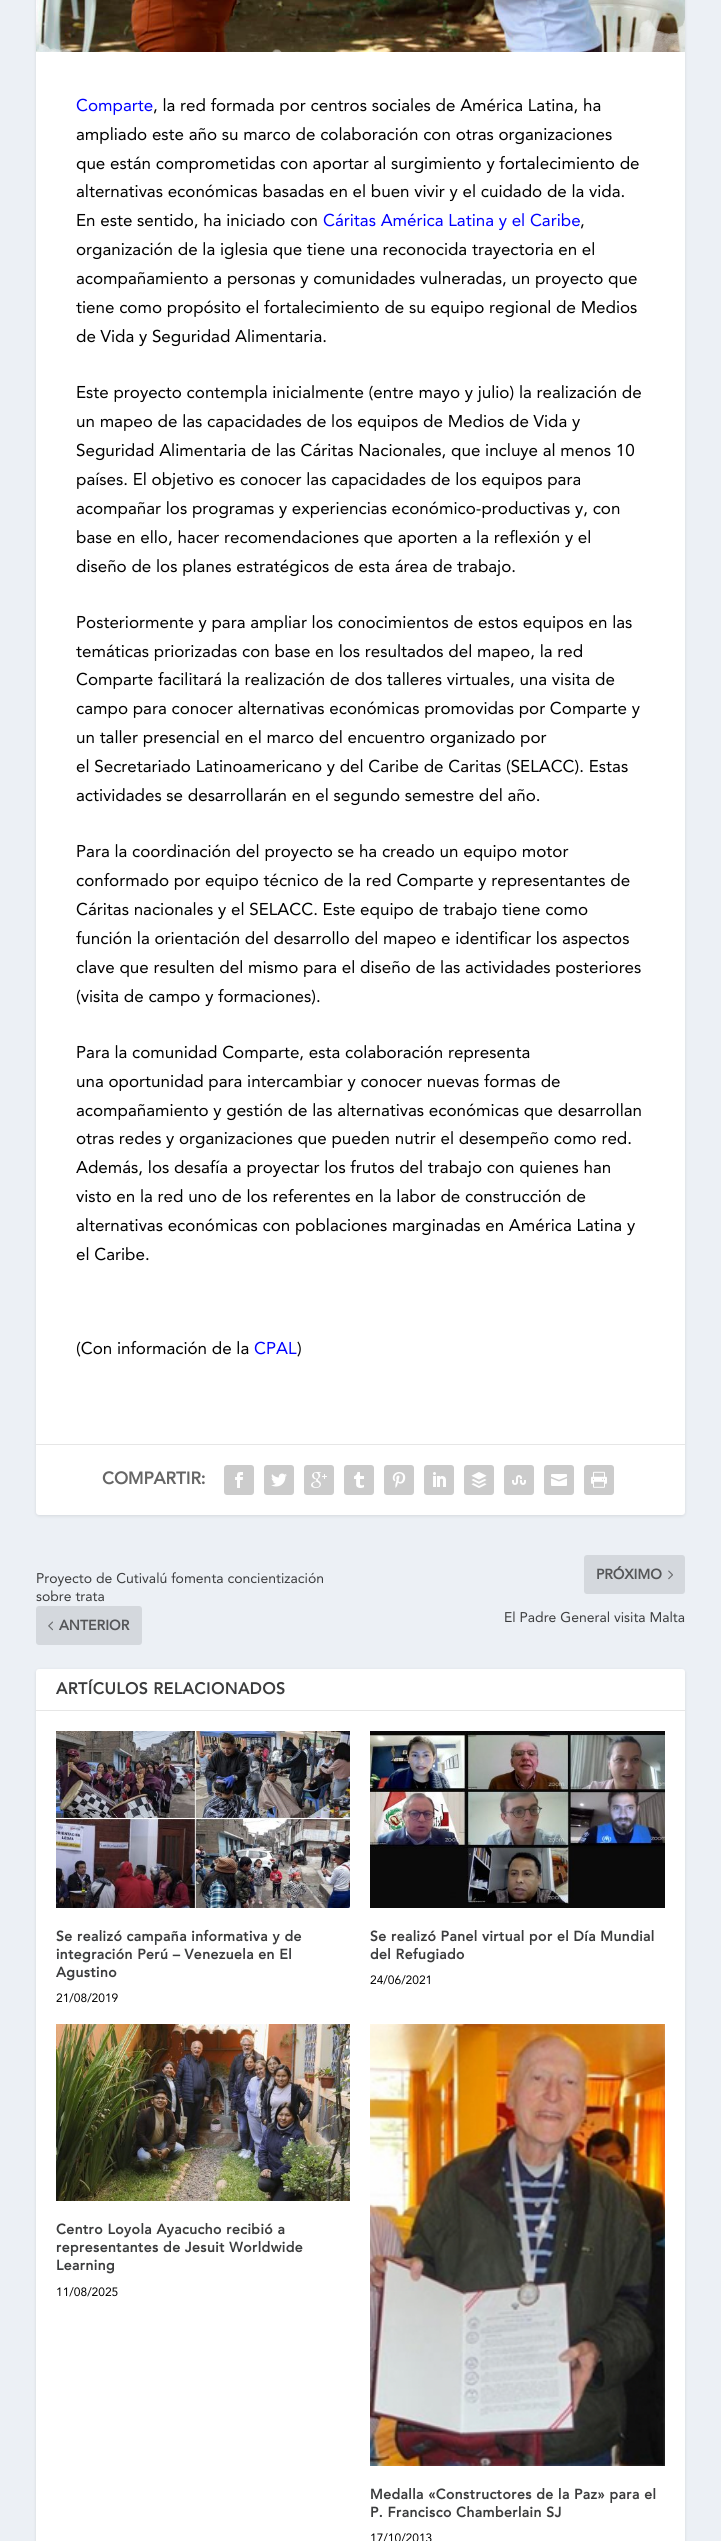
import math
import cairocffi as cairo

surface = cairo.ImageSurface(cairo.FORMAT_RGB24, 721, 2541)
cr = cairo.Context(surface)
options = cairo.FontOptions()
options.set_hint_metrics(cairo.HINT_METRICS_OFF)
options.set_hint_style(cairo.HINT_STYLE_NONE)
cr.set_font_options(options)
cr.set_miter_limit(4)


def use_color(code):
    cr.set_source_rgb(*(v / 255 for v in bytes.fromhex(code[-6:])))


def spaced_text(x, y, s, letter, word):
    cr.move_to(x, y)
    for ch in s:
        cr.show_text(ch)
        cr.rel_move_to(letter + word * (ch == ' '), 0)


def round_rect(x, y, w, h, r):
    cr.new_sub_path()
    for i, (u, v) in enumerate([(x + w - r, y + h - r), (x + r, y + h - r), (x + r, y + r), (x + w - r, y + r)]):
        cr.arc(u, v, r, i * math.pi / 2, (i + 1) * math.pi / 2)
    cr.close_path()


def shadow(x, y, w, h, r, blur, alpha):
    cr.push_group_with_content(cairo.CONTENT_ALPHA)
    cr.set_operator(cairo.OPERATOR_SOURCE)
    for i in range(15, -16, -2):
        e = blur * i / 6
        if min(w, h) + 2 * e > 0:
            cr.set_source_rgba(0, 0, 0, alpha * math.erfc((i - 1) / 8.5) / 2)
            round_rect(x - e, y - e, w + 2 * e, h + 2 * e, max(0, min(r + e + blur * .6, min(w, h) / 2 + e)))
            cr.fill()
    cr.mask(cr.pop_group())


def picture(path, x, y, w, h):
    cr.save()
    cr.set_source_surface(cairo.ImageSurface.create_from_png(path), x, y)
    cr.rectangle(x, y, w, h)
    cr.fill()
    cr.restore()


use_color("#ecf0f5")
cr.paint()
use_color("#000000")
shadow(36, -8, 649, 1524, 3, 1.5, 0.1)
use_color("#ffffff")
round_rect(36, -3, 649, 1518, 3)
cr.fill()
picture("img1.png", 36, 0, 649, 52)
cr.select_font_face("Avenir")
cr.set_font_size(17)
use_color("#0000ff")
cr.move_to(76, 111)
cr.show_text("Comparte")
use_color("#000000")
cr.move_to(153, 111)
cr.show_text(", la red formada por centros sociales de América Latina, ha")
cr.move_to(76, 140)
cr.show_text("ampliado este año su marco de colaboración con otras organizaciones")
cr.move_to(76, 169)
cr.show_text("que están comprometidas con aportar al surgimiento y fortalecimiento de")
cr.move_to(76, 197)
cr.show_text("alternativas económicas basadas en el buen vivir y el cuidado de la vida.")
cr.move_to(76, 226)
cr.show_text("En este sentido, ha iniciado con")
use_color("#0000ff")
cr.move_to(323, 226)
cr.show_text("Cáritas América Latina y el Caribe")
use_color("#000000")
cr.move_to(580, 226)
cr.show_text(",")
cr.move_to(76, 255)
cr.show_text("organización de la iglesia que tiene una reconocida trayectoria en el")
cr.move_to(76, 284)
cr.show_text("acompañamiento a personas y comunidades vulneradas, un proyecto que")
cr.move_to(76, 313)
cr.show_text("tiene como propósito el fortalecimiento de su equipo regional de Medios")
cr.move_to(76, 342)
cr.show_text("de Vida y Seguridad Alimentaria.")
cr.move_to(76, 398)
cr.show_text("Este proyecto contempla inicialmente (entre mayo y julio) la realización de")
cr.move_to(76, 427)
cr.show_text("un mapeo de las capacidades de los equipos de Medios de Vida y")
cr.move_to(76, 456)
cr.show_text("Seguridad Alimentaria de las Cáritas Nacionales, que incluye al menos 10")
cr.move_to(76, 485)
cr.show_text("países. El objetivo es conocer las capacidades de los equipos para")
cr.move_to(76, 514)
cr.show_text("acompañar los programas y experiencias económico-productivas y, con")
cr.move_to(76, 543)
cr.show_text("base en ello, hacer recomendaciones que aporten a la reflexión y el")
cr.move_to(76, 572)
cr.show_text("diseño de los planes estratégicos de esta área de trabajo.")
cr.move_to(76, 628)
cr.show_text("Posteriormente y para ampliar los conocimientos de estos equipos en las")
cr.move_to(76, 657)
cr.show_text("temáticas priorizadas con base en los resultados del mapeo, la red")
cr.move_to(76, 685)
cr.show_text("Comparte facilitará la realización de dos talleres virtuales, una visita de")
cr.move_to(76, 714)
cr.show_text("campo para conocer alternativas económicas promovidas por Comparte y")
cr.move_to(76, 743)
cr.show_text("un taller presencial en el marco del encuentro organizado por")
cr.move_to(76, 772)
cr.show_text("el Secretariado Latinoamericano y del Caribe de Caritas (SELACC). Estas")
cr.move_to(76, 801)
cr.show_text("actividades se desarrollarán en el segundo semestre del año.")
cr.move_to(76, 857)
cr.show_text("Para la coordinación del proyecto se ha creado un equipo motor")
cr.move_to(76, 886)
cr.show_text("conformado por equipo técnico de la red Comparte y representantes de")
cr.move_to(76, 915)
cr.show_text("Cáritas nacionales y el SELACC. Este equipo de trabajo tiene como")
cr.move_to(76, 944)
cr.show_text("función la orientación del desarrollo del mapeo e identificar los aspectos")
cr.move_to(76, 973)
cr.show_text("clave que resulten del mismo para el diseño de las actividades posteriores")
cr.move_to(76, 1002)
cr.show_text("(visita de campo y formaciones).")
cr.move_to(76, 1058)
cr.show_text("Para la comunidad Comparte, esta colaboración representa")
cr.move_to(76, 1087)
cr.show_text("una oportunidad para intercambiar y conocer nuevas formas de")
cr.move_to(76, 1116)
cr.show_text("acompañamiento y gestión de las alternativas económicas que desarrollan")
cr.move_to(76, 1144)
cr.show_text("otras redes y organizaciones que pueden nutrir el desempeño como red.")
cr.move_to(76, 1173)
cr.show_text("Además, los desafía a proyectar los frutos del trabajo con quienes han")
cr.move_to(76, 1202)
cr.show_text("visto en la red uno de los referentes en la labor de construcción de")
cr.move_to(76, 1231)
cr.show_text("alternativas económicas con poblaciones marginadas en América Latina y")
cr.move_to(76, 1260)
cr.show_text("el Caribe.")
cr.move_to(76, 1354)
cr.show_text("(Con información de la")
use_color("#0000ff")
cr.move_to(254, 1354)
cr.show_text("CPAL")
use_color("#000000")
cr.move_to(297, 1354)
cr.show_text(")")
use_color("#e6e6e6")
cr.rectangle(36, 1444, 649, 1)
cr.fill()
cr.select_font_face("Avenir", cairo.FONT_SLANT_NORMAL, cairo.FONT_WEIGHT_BOLD)
use_color("#666666")
cr.move_to(102, 1484)
cr.show_text("COMPARTIR:")
use_color("#cccccc")
round_rect(224, 1465, 30, 30, 3)
cr.fill()
picture("img2.png", 235, 1472, 8, 16)
round_rect(264, 1465, 30, 30, 3)
cr.fill()
picture("img3.png", 271, 1473, 16, 14)
round_rect(304, 1465, 30, 30, 3)
cr.fill()
picture("img4.png", 311, 1472, 16, 16)
round_rect(344, 1465, 30, 30, 3)
cr.fill()
picture("img5.png", 354, 1472, 10, 16)
round_rect(384, 1465, 30, 30, 3)
cr.fill()
picture("img6.png", 392, 1472, 14, 16)
round_rect(424, 1465, 30, 30, 3)
cr.fill()
picture("img7.png", 433, 1472, 13, 15)
round_rect(464, 1465, 30, 30, 3)
cr.fill()
picture("img8.png", 471, 1472, 16, 16)
round_rect(504, 1465, 30, 30, 3)
cr.fill()
picture("img9.png", 512, 1475, 14, 10)
round_rect(544, 1465, 30, 30, 3)
cr.fill()
picture("img10.png", 551, 1474, 16, 12)
round_rect(584, 1465, 30, 30, 3)
cr.fill()
picture("img11.png", 591, 1471, 16, 17)
cr.select_font_face("Avenir")
cr.set_font_size(14)
use_color("#3b3c3d")
cr.move_to(36, 1583)
cr.show_text("Proyecto de Cutivalú fomenta concientización")
cr.move_to(36, 1601)
cr.show_text("sobre trata")
use_color("#d4d8dd")
round_rect(36, 1606, 106, 39, 3)
cr.fill()
picture("img12.png", 48, 1621, 5, 10)
cr.select_font_face("Avenir", cairo.FONT_SLANT_NORMAL, cairo.FONT_WEIGHT_BOLD)
use_color("#555658")
cr.move_to(59, 1630)
cr.show_text("ANTERIOR")
use_color("#d4d8dd")
round_rect(584, 1555, 101, 39, 3)
cr.fill()
use_color("#555658")
cr.move_to(596, 1579)
cr.show_text("PRÓXIMO")
picture("img13.png", 668, 1570, 5, 10)
cr.select_font_face("Avenir")
use_color("#3b3c3d")
cr.move_to(504, 1622)
cr.show_text("El Padre General visita Malta")
use_color("#000000")
shadow(36, 1670, 649, 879, 3, 1.5, 0.1)
use_color("#ffffff")
round_rect(36, 1669, 649, 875, 3)
cr.fill()
use_color("#e6e6e6")
cr.rectangle(36, 1710, 649, 1)
cr.fill()
cr.select_font_face("Avenir", cairo.FONT_SLANT_NORMAL, cairo.FONT_WEIGHT_BOLD)
cr.set_font_size(16)
use_color("#3b3c3d")
spaced_text(56, 1694, "ARTÍCULOS RELACIONADOS", 0.5, 0)
picture("img14.png", 56, 1731, 294, 177)
cr.set_font_size(14)
spaced_text(56, 1941, "Se realizó campaña informativa y de", 0.5, 0)
spaced_text(56, 1959, "integración Perú – Venezuela en El", 0.5, 0)
spaced_text(56, 1977, "Agustino", 0.5, 0)
cr.select_font_face("Avenir")
cr.set_font_size(12)
use_color("#000000")
cr.move_to(56, 2002)
cr.show_text("21/08/2019")
picture("img15.png", 370, 1731, 295, 177)
cr.select_font_face("Avenir", cairo.FONT_SLANT_NORMAL, cairo.FONT_WEIGHT_BOLD)
cr.set_font_size(14)
use_color("#3b3c3d")
spaced_text(370, 1941, "Se realizó Panel virtual por el Día Mundial", 0.5, 0)
spaced_text(370, 1959, "del Refugiado", 0.5, 0)
cr.select_font_face("Avenir")
cr.set_font_size(12)
use_color("#000000")
cr.move_to(370, 1984)
cr.show_text("24/06/2021")
picture("img16.png", 56, 2024, 294, 177)
cr.select_font_face("Avenir", cairo.FONT_SLANT_NORMAL, cairo.FONT_WEIGHT_BOLD)
cr.set_font_size(14)
use_color("#3b3c3d")
spaced_text(56, 2234, "Centro Loyola Ayacucho recibió a", 0.5, 0)
spaced_text(56, 2252, "representantes de Jesuit Worldwide", 0.5, 0)
spaced_text(56, 2270, "Learning", 0.5, 0)
cr.select_font_face("Avenir")
cr.set_font_size(12)
use_color("#000000")
cr.move_to(56, 2296)
cr.show_text("11/08/2025")
picture("img17.png", 370, 2024, 295, 442)
cr.select_font_face("Avenir", cairo.FONT_SLANT_NORMAL, cairo.FONT_WEIGHT_BOLD)
cr.set_font_size(14)
use_color("#3b3c3d")
spaced_text(370, 2499, "Medalla «Constructores de la Paz» para el", 0.5, 0)
spaced_text(370, 2517, "P. Francisco Chamberlain SJ", 0.5, 0)
cr.select_font_face("Avenir")
cr.set_font_size(12)
use_color("#000000")
cr.move_to(370, 2542)
cr.show_text("17/10/2013")
surface.write_to_png("result.png")
